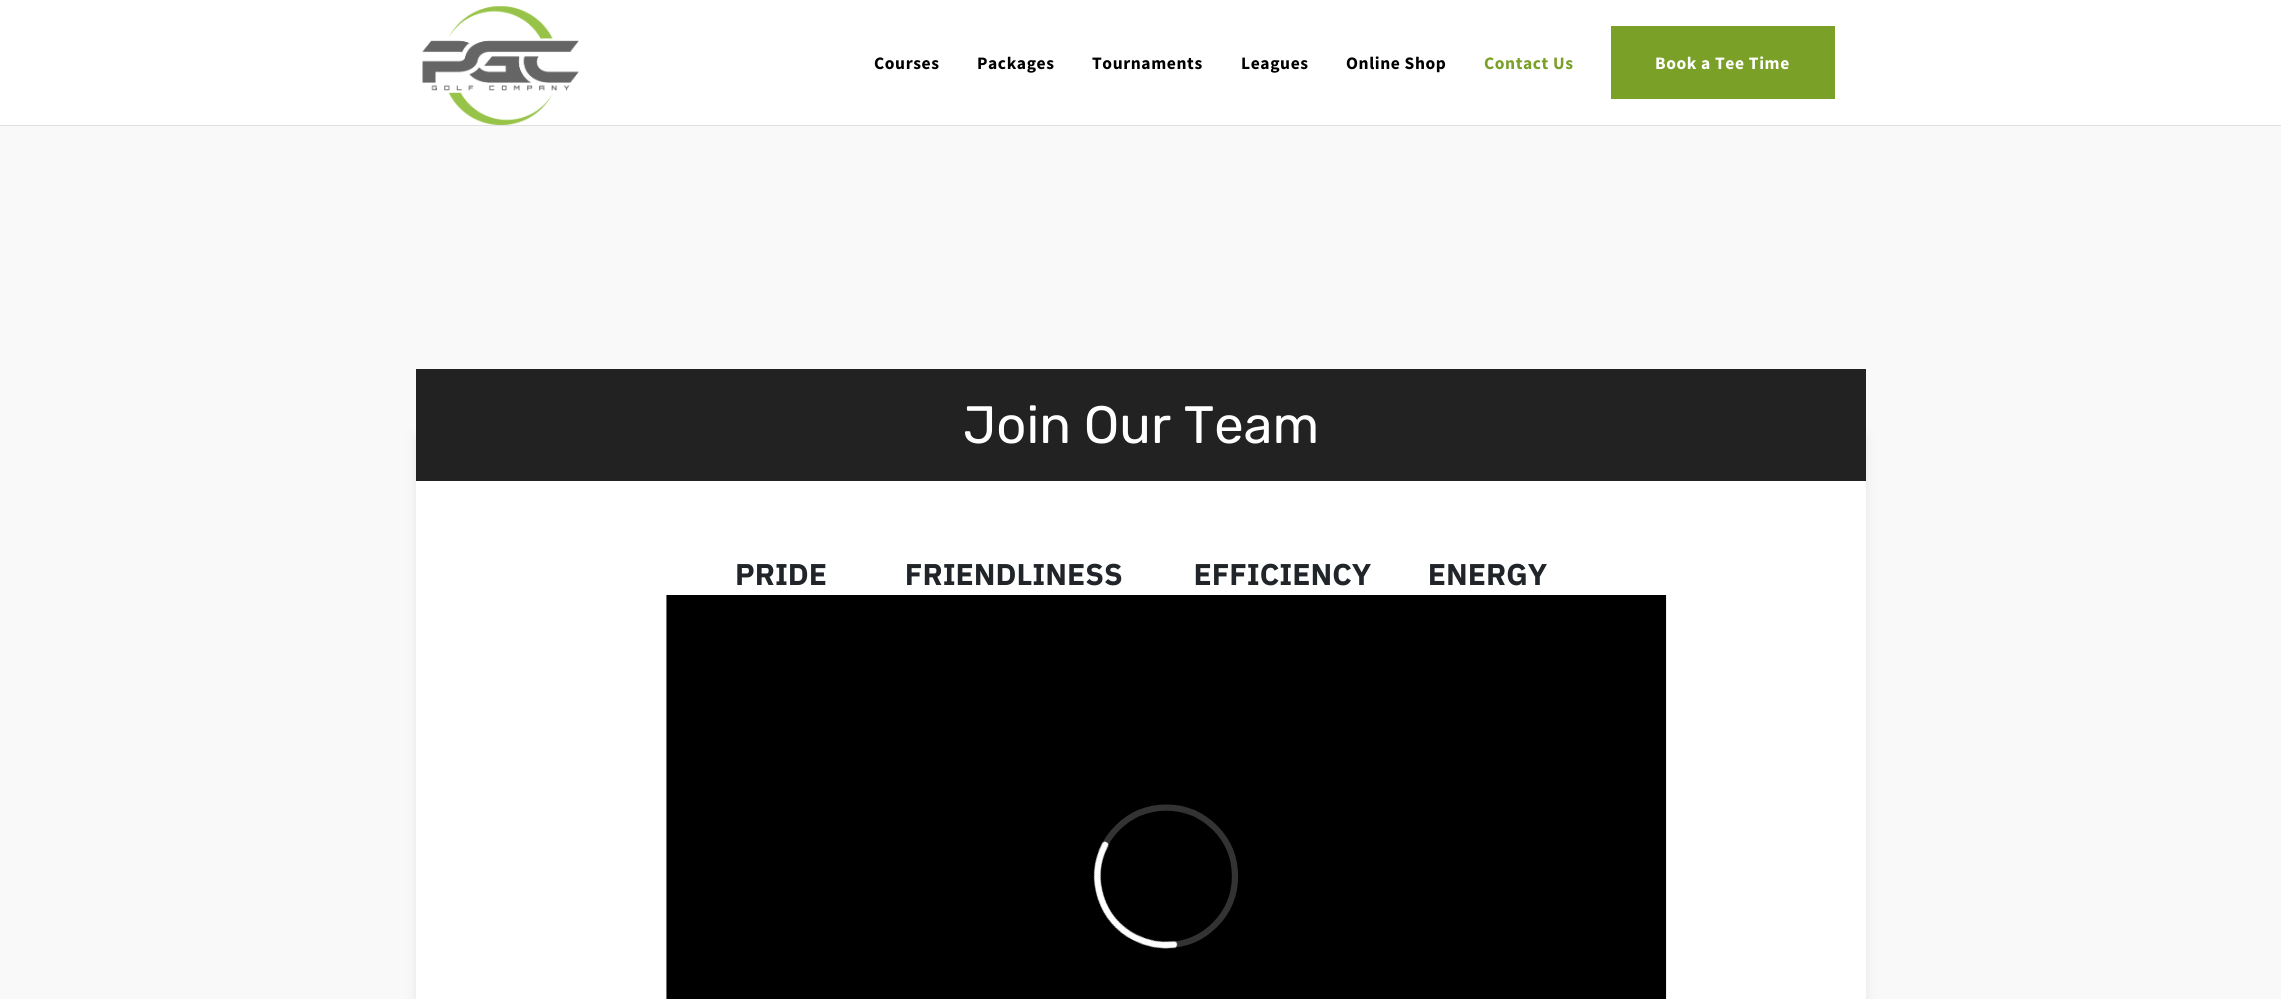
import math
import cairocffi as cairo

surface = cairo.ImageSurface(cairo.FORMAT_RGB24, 2281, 999)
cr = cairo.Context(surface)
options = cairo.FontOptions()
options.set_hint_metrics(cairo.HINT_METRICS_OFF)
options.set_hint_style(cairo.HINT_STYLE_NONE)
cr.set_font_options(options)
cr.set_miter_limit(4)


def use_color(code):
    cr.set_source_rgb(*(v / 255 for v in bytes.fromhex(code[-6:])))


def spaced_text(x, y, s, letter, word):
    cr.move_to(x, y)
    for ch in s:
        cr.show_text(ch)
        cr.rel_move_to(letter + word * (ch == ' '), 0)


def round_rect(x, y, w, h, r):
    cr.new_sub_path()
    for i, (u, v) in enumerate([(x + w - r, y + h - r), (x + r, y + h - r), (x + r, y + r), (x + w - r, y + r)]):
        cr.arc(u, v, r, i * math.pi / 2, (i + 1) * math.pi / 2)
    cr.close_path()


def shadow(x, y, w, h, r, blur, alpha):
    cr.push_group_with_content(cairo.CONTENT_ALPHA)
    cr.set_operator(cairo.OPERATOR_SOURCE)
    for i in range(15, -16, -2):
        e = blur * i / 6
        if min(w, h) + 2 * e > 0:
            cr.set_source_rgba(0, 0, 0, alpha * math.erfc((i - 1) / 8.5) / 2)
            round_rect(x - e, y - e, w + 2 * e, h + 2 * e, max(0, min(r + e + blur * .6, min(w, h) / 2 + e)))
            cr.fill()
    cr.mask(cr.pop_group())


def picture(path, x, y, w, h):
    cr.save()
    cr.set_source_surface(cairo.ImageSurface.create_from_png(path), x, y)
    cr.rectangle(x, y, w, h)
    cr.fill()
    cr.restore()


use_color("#f9f9f9")
cr.paint()
use_color("#e0e0e0")
cr.rectangle(0, 125, 2281, 1)
cr.fill()
use_color("#ffffff")
cr.rectangle(0, 0, 2281, 125)
cr.fill()
picture("img1.png", 422, 6, 157, 119)
cr.select_font_face("Source Sans Pro", cairo.FONT_SLANT_NORMAL, cairo.FONT_WEIGHT_BOLD)
cr.set_font_size(17.5)
use_color("#000000")
spaced_text(874, 69, "Courses", 0.6, 0)
spaced_text(977, 69, "Packages", 0.6, 0)
spaced_text(1092, 69, "Tournaments", 0.6, 0)
spaced_text(1241, 69, "Leagues", 0.6, 0)
spaced_text(1346, 69, "Online Shop", 0.6, 0)
use_color("#7aa027")
spaced_text(1484, 69, "Contact Us", 0.6, 0)
cr.rectangle(1611, 26, 224, 73)
cr.fill()
use_color("#ffffff")
spaced_text(1655, 69, "Book a Tee Time", 0.6, 0)
use_color("#e7e7e7")
shadow(416, 438, 1450, 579, 0, 6, 1)
use_color("#222223")
cr.rectangle(416, 369, 1450, 112)
cr.fill()
cr.select_font_face("Rubik")
cr.set_font_size(52.5)
use_color("#ffffff")
cr.move_to(963, 443)
cr.show_text("Join Our Team")
cr.rectangle(416, 481, 1450, 518)
cr.fill()
cr.select_font_face("IBM Plex Sans", cairo.FONT_SLANT_NORMAL, cairo.FONT_WEIGHT_BOLD)
cr.set_font_size(30)
use_color("#212529")
cr.move_to(735, 585)
cr.show_text("PRIDE           FRIENDLINESS          EFFICIENCY        ENERGY")
picture("img2.png", 666, 595, 1001, 404)
surface.write_to_png("result.png")
